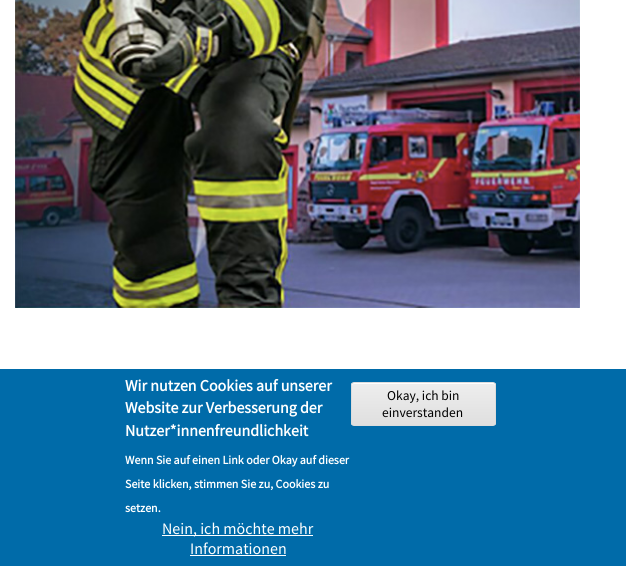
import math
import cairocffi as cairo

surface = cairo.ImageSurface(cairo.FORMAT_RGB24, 626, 566)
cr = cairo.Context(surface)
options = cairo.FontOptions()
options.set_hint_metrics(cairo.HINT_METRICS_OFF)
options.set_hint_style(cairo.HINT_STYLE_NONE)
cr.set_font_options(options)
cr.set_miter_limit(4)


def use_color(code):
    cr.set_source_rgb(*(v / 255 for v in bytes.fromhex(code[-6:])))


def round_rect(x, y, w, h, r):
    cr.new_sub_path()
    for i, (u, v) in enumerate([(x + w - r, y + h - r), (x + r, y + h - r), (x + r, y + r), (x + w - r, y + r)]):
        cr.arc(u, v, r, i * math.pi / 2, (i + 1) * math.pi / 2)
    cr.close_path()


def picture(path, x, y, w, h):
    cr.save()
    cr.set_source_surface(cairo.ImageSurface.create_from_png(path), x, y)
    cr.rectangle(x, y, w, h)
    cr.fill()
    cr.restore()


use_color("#ffffff")
cr.paint()
picture("img1.png", 15, 0, 565, 308)
use_color("#006ba9")
cr.rectangle(0, 369, 626, 197)
cr.fill()
cr.select_font_face("Source Sans Pro", cairo.FONT_SLANT_NORMAL, cairo.FONT_WEIGHT_BOLD)
cr.set_font_size(16)
use_color("#ffffff")
cr.move_to(125, 391)
cr.show_text("Wir nutzen Cookies auf unserer")
cr.move_to(125, 413)
cr.show_text("Website zur Verbesserung der")
cr.move_to(125, 436)
cr.show_text("Nutzer*innenfreundlichkeit")
cr.set_font_size(12)
cr.move_to(125, 464)
cr.show_text("Wenn Sie auf einen Link oder Okay auf dieser")
cr.move_to(125, 488)
cr.show_text("Seite klicken, stimmen Sie zu, Cookies zu")
cr.move_to(125, 512)
cr.show_text("setzen.")
cr.rectangle(162, 535, 151, 1)
cr.fill()
cr.select_font_face("Source Sans Pro")
cr.set_font_size(16)
cr.move_to(162, 534)
cr.show_text("Nein, ich möchte mehr")
cr.move_to(190, 554)
cr.show_text("Informationen")
cr.rectangle(190, 555, 96, 1)
cr.fill()
cr.save()
round_rect(351, 382, 145, 44, 3)
cr.clip()
gradient = cairo.LinearGradient(424, 383, 424, 425)
gradient.add_color_stop_rgba(0.05, 0.929, 0.929, 0.929, 1)
gradient.add_color_stop_rgba(1, 0.875, 0.875, 0.875, 1)
cr.set_source(gradient)
cr.rectangle(351, 383, 145, 42)
cr.fill()
cr.restore()
cr.new_path()
cr.move_to(354, 384)
cr.line_to(493, 384)
cr.curve_to(494, 384, 495, 385, 495, 386)
cr.curve_to(495, 385, 495, 384, 494, 383)
cr.line_to(354, 383)
cr.line_to(352, 384)
cr.line_to(352, 386)
cr.curve_to(352, 385, 353, 384, 354, 384)
cr.close_path()
cr.fill()
round_rect(351.5, 382.5, 144, 43, 2.5)
use_color("#dcdcdc")
cr.set_line_width(1)
cr.stroke()
cr.set_font_size(13.5)
use_color("#000000")
cr.move_to(387, 400)
cr.show_text("Okay, ich bin")
cr.move_to(382, 417)
cr.show_text("einverstanden")
surface.write_to_png("result.png")
